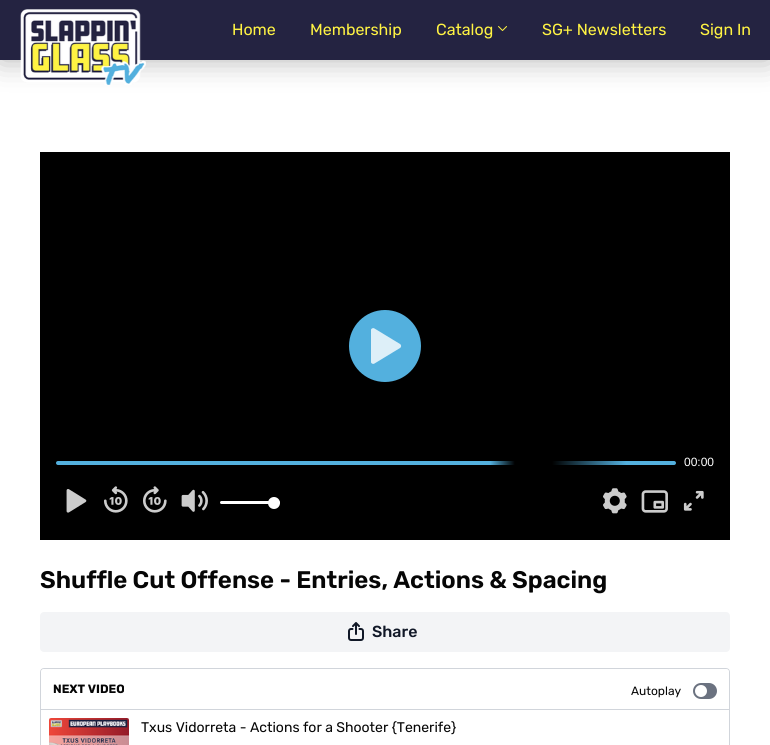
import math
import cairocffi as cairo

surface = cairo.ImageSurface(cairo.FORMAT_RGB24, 770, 745)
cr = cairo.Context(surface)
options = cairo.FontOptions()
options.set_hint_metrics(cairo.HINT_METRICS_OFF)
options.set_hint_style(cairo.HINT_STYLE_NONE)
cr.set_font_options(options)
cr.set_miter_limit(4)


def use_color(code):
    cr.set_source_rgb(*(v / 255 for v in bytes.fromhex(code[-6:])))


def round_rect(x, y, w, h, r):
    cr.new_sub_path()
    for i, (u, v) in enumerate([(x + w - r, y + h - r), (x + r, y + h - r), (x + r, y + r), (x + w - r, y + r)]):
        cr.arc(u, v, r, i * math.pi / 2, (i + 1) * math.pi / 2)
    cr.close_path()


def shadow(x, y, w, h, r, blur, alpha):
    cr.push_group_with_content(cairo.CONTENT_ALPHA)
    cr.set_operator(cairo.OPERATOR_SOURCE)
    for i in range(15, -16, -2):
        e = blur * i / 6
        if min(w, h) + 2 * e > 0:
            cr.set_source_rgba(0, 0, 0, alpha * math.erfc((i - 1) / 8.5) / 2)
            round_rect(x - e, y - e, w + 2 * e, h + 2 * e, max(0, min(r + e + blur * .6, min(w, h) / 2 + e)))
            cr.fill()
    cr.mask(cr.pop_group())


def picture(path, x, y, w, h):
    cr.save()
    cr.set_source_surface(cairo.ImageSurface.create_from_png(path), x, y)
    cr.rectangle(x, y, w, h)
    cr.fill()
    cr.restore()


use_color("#ffffff")
cr.paint()
use_color("#000000")
shadow(0, 0, 770, 60, 0, 15, 0.3)
use_color("#242341")
cr.rectangle(0, 0, 770, 60)
cr.fill()
picture("img1.png", 20, 9, 126, 76)
cr.select_font_face("Rubik")
cr.set_font_size(16)
use_color("#fff343")
cr.move_to(232, 35)
cr.show_text("Home")
cr.move_to(310, 35)
cr.show_text("Membership")
cr.move_to(436, 35)
cr.show_text("Catalog")
picture("img2.png", 498, 26, 9, 5)
cr.move_to(542, 35)
cr.show_text("SG+ Newsletters")
cr.move_to(700, 35)
cr.show_text("Sign In")
use_color("#000000")
cr.rectangle(40, 152, 690, 388)
cr.fill()
use_color("#53b0de")
cr.arc(385, 346, 36, 0, 2 * math.pi)
cr.fill()
use_color("#ddeff8")
cr.new_path()
cr.move_to(374.5, 328.5)
cr.curve_to(373, 327.5, 371, 328.5, 371, 330)
cr.line_to(371, 362)
cr.curve_to(371, 363.5, 373, 364.5, 374.5, 363.5)
cr.line_to(400, 348)
cr.curve_to(401.5, 347, 401.5, 345, 400, 344)
cr.close_path()
cr.fill()
gradient = cairo.LinearGradient(56, 465, 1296, 465)
gradient.add_color_stop_rgba(0.35, 0.325, 0.69, 0.871, 1)
gradient.add_color_stop_rgba(0.37, 0, 0, 0, 1)
gradient.add_color_stop_rgba(0.4, 0, 0, 0, 1)
gradient.add_color_stop_rgba(0.46, 0.325, 0.69, 0.871, 1)
gradient.add_color_stop_rgba(1, 0.325, 0.69, 0.871, 1)
cr.set_source(gradient)
round_rect(56, 461, 620, 4, 2)
cr.fill()
cr.select_font_face("Liberation Sans")
cr.set_font_size(12)
use_color("#ffffff")
cr.move_to(684, 466)
cr.show_text("00:00")
picture("img3.png", 66, 489, 21, 24)
picture("img4.png", 104, 486, 24, 27)
picture("img5.png", 143, 486, 24, 27)
picture("img6.png", 181, 489, 27, 23)
round_rect(220, 501, 60, 3, 1.5)
cr.fill()
cr.arc(274, 503, 6, 0, 2 * math.pi)
cr.fill()
picture("img7.png", 603, 488, 24, 26)
picture("img8.png", 641, 490, 27, 23)
picture("img9.png", 683, 490, 21, 21)
cr.select_font_face("Rubik SemiBold")
cr.set_font_size(24)
use_color("#060606")
cr.move_to(40, 588)
cr.show_text("Shuffle Cut Offense - Entries, Actions & Spacing")
use_color("#f3f4f6")
round_rect(40, 612, 690, 40, 4)
cr.fill()
picture("img10.png", 348, 622, 16, 19)
cr.select_font_face("Rubik Medium")
cr.set_font_size(16)
use_color("#111827")
cr.move_to(372, 637)
cr.show_text("Share")
round_rect(40.5, 668.5, 689, 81, 3.5)
use_color("#d1d5db")
cr.set_line_width(1)
cr.stroke()
use_color("#ffffff")
cr.new_path()
cr.move_to(44, 669)
cr.line_to(726, 669)
cr.curve_to(727.5, 669, 729, 670.5, 729, 672)
cr.line_to(729, 709)
cr.line_to(41, 709)
cr.line_to(41, 672)
cr.curve_to(41, 670.5, 42.5, 669, 44, 669)
cr.close_path()
cr.fill()
use_color("#d1d5db")
cr.rectangle(41, 709, 688, 1)
cr.fill()
cr.select_font_face("Rubik", cairo.FONT_SLANT_NORMAL, cairo.FONT_WEIGHT_BOLD)
cr.set_font_size(12)
use_color("#060606")
cr.move_to(53, 693)
cr.show_text("NEXT VIDEO")
cr.select_font_face("Rubik")
cr.move_to(631, 695)
cr.show_text("Autoplay")
use_color("#6b7280")
round_rect(693, 683, 24, 16, 8)
cr.fill()
use_color("#ffffff")
cr.arc(701, 691, 6, 0, 2 * math.pi)
cr.fill()
picture("img11.png", 49, 718, 80, 27)
cr.set_font_size(14)
use_color("#060606")
cr.move_to(141, 732)
cr.show_text("Txus Vidorreta - Actions for a Shooter {Tenerife}")
surface.write_to_png("result.png")
